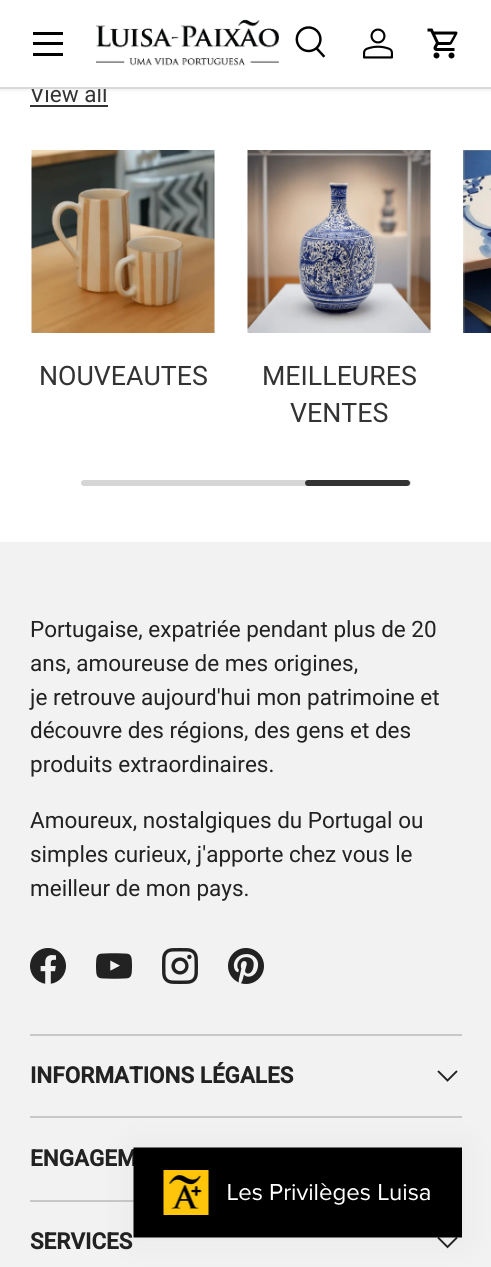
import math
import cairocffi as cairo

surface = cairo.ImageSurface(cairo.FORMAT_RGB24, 491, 1267)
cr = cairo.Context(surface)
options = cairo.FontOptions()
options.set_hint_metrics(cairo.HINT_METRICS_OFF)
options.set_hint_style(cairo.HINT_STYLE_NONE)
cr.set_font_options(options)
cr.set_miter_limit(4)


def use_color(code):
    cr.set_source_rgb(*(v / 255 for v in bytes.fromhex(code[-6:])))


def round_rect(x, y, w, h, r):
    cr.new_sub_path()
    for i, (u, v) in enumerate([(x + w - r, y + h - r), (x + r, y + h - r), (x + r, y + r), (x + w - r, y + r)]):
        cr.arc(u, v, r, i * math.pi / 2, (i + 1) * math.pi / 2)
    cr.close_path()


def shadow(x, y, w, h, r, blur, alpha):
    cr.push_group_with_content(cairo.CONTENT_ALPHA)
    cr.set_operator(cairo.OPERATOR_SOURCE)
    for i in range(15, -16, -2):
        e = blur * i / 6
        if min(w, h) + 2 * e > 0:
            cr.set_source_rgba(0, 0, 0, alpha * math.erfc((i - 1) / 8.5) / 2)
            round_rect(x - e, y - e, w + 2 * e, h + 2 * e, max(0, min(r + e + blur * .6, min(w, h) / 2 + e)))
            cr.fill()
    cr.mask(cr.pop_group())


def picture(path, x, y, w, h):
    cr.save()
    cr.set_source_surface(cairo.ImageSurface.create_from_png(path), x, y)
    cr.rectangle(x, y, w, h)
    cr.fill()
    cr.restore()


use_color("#ffffff")
cr.paint()
use_color("#000000")
shadow(-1, -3, 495, 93, 0, 2, 0.08)
cr.select_font_face("Roboto")
cr.set_font_size(22.5)
use_color("#333333")
cr.move_to(30, 102)
cr.show_text("View all")
use_color("#ffffff")
cr.rectangle(0, 0, 491, 87)
cr.fill()
use_color("#000000")
cr.rectangle(33, 32, 30, 3)
cr.fill()
cr.rectangle(33, 53, 30, 3)
cr.fill()
cr.rectangle(33, 42, 30, 3)
cr.fill()
picture("img1.png", 96, 19, 183, 47)
picture("img2.png", 295, 26, 31, 32)
picture("img3.png", 363, 28, 30, 31)
picture("img4.png", 427, 28, 31, 31)
use_color("#d9d9d9")
cr.rectangle(0, 87, 491, 2)
cr.fill()
use_color("#333333")
cr.rectangle(30, 105, 78, 2)
cr.fill()
picture("img5.png", 463, 150, 28, 183)
use_color("#fafafa")
cr.rectangle(214, 150, 1, 183)
cr.fill()
picture("img6.png", 31, 150, 184, 183)
cr.set_font_size(26.75)
use_color("#333333")
cr.move_to(39, 385)
cr.show_text("NOUVEAUTES")
use_color("#fafafa")
cr.rectangle(430, 150, 1, 183)
cr.fill()
picture("img7.png", 247, 150, 184, 183)
use_color("#333333")
cr.move_to(262, 385)
cr.show_text("MEILLEURES")
cr.move_to(290, 422)
cr.show_text("VENTES")
use_color("#d6d6d6")
round_rect(81, 480, 330, 6, 3)
cr.fill()
use_color("#333333")
round_rect(305, 480, 105, 6, 3)
cr.fill()
use_color("#f2f2f2")
cr.rectangle(0, 542, 491, 725)
cr.fill()
cr.set_font_size(22.5)
use_color("#222222")
cr.move_to(30, 637)
cr.show_text("Portugaise, expatriée pendant plus de 20")
cr.move_to(30, 671)
cr.show_text("ans, amoureuse de mes origines,")
cr.move_to(30, 705)
cr.show_text("je retrouve aujourd'hui mon patrimoine et")
cr.move_to(30, 738)
cr.show_text("découvre des régions, des gens et des")
cr.move_to(30, 772)
cr.show_text("produits extraordinaires.")
cr.move_to(30, 828)
cr.show_text("Amoureux, nostalgiques du Portugal ou")
cr.move_to(30, 862)
cr.show_text("simples curieux, j'apporte chez vous le")
cr.move_to(30, 896)
cr.show_text("meilleur de mon pays.")
picture("img8.png", 30, 948, 36, 36)
picture("img9.png", 96, 953, 36, 26)
picture("img10.png", 162, 948, 36, 36)
picture("img11.png", 228, 948, 36, 36)
use_color("#c8c8c8")
cr.rectangle(30, 1034, 432, 2)
cr.fill()
cr.rectangle(30, 1116, 432, 2)
cr.fill()
cr.select_font_face("Roboto", cairo.FONT_SLANT_NORMAL, cairo.FONT_WEIGHT_BOLD)
use_color("#222222")
cr.move_to(30, 1083)
cr.show_text("INFORMATIONS LÉGALES")
cr.new_path()
cr.move_to(457, 1071)
cr.line_to(447.5, 1080.5)
cr.line_to(438, 1071)
cr.set_line_width(1.9)
cr.stroke()
use_color("#c8c8c8")
cr.rectangle(30, 1200, 104, 2)
cr.fill()
use_color("#222222")
cr.move_to(30, 1166)
cr.show_text("ENGAGEM")
cr.move_to(30, 1249)
cr.show_text("SERVICES")
cr.new_path()
cr.move_to(457, 1237.5)
cr.line_to(447.5, 1247)
cr.line_to(438, 1237.5)
cr.stroke()
use_color("#000000")
shadow(134, 1148, 328, 90, 0, 19, 0.05)
picture("img12.png", 133, 1147, 329, 91)
surface.write_to_png("result.png")
